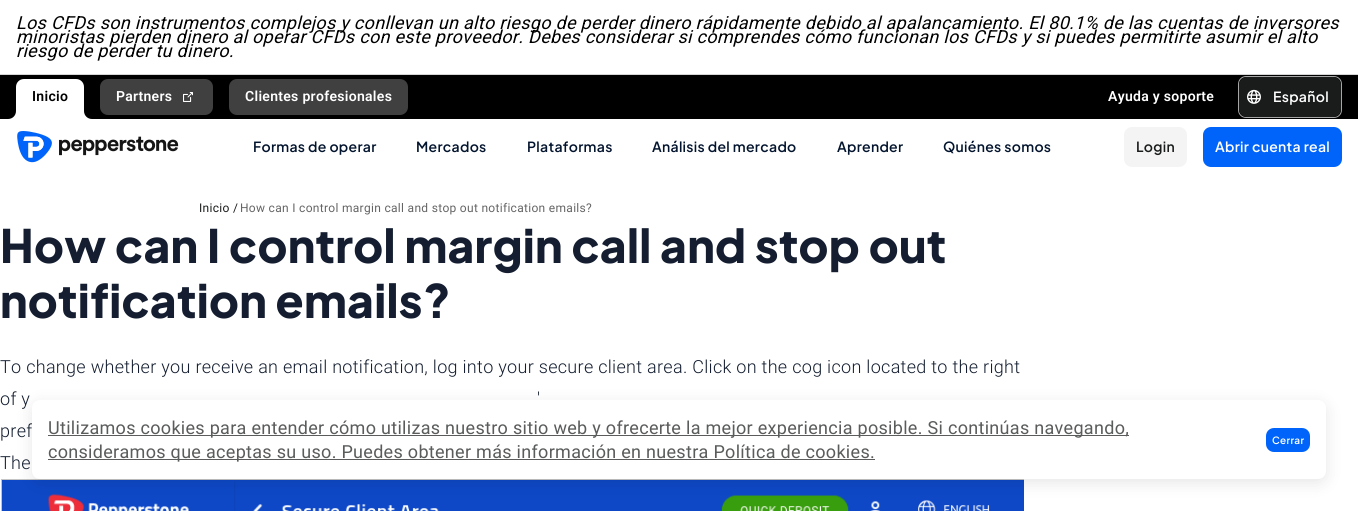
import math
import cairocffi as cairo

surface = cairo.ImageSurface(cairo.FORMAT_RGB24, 1358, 511)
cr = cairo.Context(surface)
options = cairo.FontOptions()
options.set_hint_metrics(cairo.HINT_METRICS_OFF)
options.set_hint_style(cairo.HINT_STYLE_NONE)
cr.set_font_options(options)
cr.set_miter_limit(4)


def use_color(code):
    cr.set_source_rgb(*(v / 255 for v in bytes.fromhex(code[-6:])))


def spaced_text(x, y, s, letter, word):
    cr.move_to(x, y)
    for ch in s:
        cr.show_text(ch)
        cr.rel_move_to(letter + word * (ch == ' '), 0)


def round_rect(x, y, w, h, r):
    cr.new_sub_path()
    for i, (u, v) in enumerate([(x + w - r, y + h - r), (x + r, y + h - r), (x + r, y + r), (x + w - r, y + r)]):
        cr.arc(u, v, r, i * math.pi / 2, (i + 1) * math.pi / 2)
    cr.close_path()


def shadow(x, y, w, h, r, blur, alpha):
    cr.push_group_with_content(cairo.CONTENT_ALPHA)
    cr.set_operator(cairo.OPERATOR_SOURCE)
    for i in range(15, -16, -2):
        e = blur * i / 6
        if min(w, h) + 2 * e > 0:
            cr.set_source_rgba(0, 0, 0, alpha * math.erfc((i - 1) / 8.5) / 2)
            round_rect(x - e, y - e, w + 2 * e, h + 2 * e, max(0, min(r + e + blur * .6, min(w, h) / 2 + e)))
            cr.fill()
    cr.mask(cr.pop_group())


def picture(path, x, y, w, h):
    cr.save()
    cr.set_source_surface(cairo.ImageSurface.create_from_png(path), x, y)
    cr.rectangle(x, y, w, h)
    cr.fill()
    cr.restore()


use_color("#ffffff")
cr.paint()
use_color("#d6d6d6")
cr.rectangle(0, 74, 1358, 1)
cr.fill()
cr.select_font_face("Roboto", cairo.FONT_SLANT_ITALIC)
cr.set_font_size(18)
use_color("#000000")
spaced_text(16, 29, "Los CFDs son instrumentos complejos y conllevan un alto riesgo de perder dinero rápidamente debido al apalancamiento. El 80.1% de las cuentas de inversores", 0.3, 0)
spaced_text(16, 43, "minoristas pierden dinero al operar CFDs con este proveedor. Debes considerar si comprendes cómo funcionan los CFDs y si puedes permitirte asumir el alto", 0.3, 0)
spaced_text(16, 57, "riesgo de perder tu dinero.", 0.3, 0)
cr.rectangle(0, 75, 1358, 44)
cr.fill()
use_color("#ffffff")
cr.new_path()
cr.move_to(24, 79)
cr.line_to(76, 79)
cr.curve_to(80.5, 79, 84, 82.5, 84, 87)
cr.line_to(84, 119)
cr.line_to(16, 119)
cr.line_to(16, 87)
cr.curve_to(16, 82.5, 19.5, 79, 24, 79)
cr.close_path()
cr.fill()
cr.select_font_face("Roboto SemiBold")
cr.set_font_size(14)
use_color("#000000")
spaced_text(32, 101, "Inicio", 0.3, 0)
use_color("#ffffff")
cr.rectangle(8, 111, 8, 8)
cr.fill()
use_color("#000000")
cr.new_path()
cr.move_to(8, 103)
cr.curve_to(12.5, 103, 16, 106.5, 16, 111)
cr.curve_to(16, 115.5, 12.5, 119, 8, 119)
cr.close_path()
cr.fill()
use_color("#ffffff")
cr.rectangle(84, 111, 8, 8)
cr.fill()
use_color("#000000")
cr.new_path()
cr.move_to(92, 103)
cr.line_to(92, 119)
cr.curve_to(87.5, 119, 84, 115.5, 84, 111)
cr.curve_to(84, 106.5, 87.5, 103, 92, 103)
cr.close_path()
cr.fill()
use_color("#404040")
round_rect(100, 79, 113, 36, 8)
cr.fill()
use_color("#ffffff")
spaced_text(116, 101, "Partners", 0.3, 0)
picture("img1.png", 183, 92, 10, 10)
use_color("#404040")
round_rect(229, 79, 179, 36, 8)
cr.fill()
use_color("#ffffff")
spaced_text(245, 101, "Clientes profesionales", 0.3, 0)
spaced_text(1108, 101, "Ayuda y soporte", 0.3, 0)
round_rect(1238.5, 76.5, 103, 41, 7.5)
use_color("#a6a6a6")
cr.set_line_width(1)
cr.stroke()
use_color("#1a1b1b")
round_rect(1239, 77, 102, 40, 8)
cr.fill()
picture("img2.png", 1247, 89, 14, 15)
cr.select_font_face("Plus Jakarta Sans SemiBold")
use_color("#ffffff")
spaced_text(1273, 102, "Español", 0.3, 0)
picture("img3.png", 17, 131, 162, 32)
use_color("#03142e")
spaced_text(253, 152, "Formas de operar", 0.3, 0)
spaced_text(416, 152, "Mercados", 0.3, 0)
spaced_text(527, 152, "Plataformas", 0.3, 0)
spaced_text(652, 152, "Análisis del mercado", 0.3, 0)
spaced_text(837, 152, "Aprender", 0.3, 0)
spaced_text(943, 152, "Quiénes somos", 0.3, 0)
use_color("#f4f4f4")
round_rect(1124, 127, 63, 40, 8)
cr.fill()
use_color("#1a1b1b")
spaced_text(1136, 152, "Login", 0.3, 0)
use_color("#0064fa")
round_rect(1203, 127, 139, 40, 8)
cr.fill()
use_color("#ffffff")
spaced_text(1215, 152, "Abrir cuenta real", 0.3, 0)
cr.select_font_face("Roboto")
cr.set_font_size(12)
use_color("#1a1b1b")
spaced_text(199, 212, "Inicio /", 0.3, 0)
use_color("#656565")
spaced_text(240, 212, "How can I control margin call and stop out notification emails?", 0.3, 0)
cr.select_font_face("Plus Jakarta Sans ExtraBold")
cr.set_font_size(46)
use_color("#141e30")
spaced_text(0, 263, "How can I control margin call and stop out", 0.3, 0)
spaced_text(0, 318, "notification emails?", 0.3, 0)
cr.select_font_face("Roboto Light")
cr.set_font_size(18)
spaced_text(0, 373, "To change whether you receive an email notification, log into your secure client area. Click on the cog icon located to the right", 0.3, 0)
spaced_text(0, 405, "of y", 0.3, 0)
spaced_text(537, 405, "'", 0.3, 0)
spaced_text(0, 437, "pref", 0.3, 0)
spaced_text(0, 469, "The", 0.3, 0)
picture("img4.png", 1, 479, 1023, 32)
use_color("#000000")
shadow(32, 404, 1294, 79, 8, 8, 0.1)
use_color("#ffffff")
round_rect(32, 400, 1294, 79, 8)
cr.fill()
use_color("#5a5b5b")
cr.rectangle(48, 435, 1081, 1)
cr.fill()
cr.select_font_face("Roboto")
spaced_text(48, 434, "Utilizamos cookies para entender cómo utilizas nuestro sitio web y ofrecerte la mejor experiencia posible. Si continúas navegando,", 0.3, 0)
cr.rectangle(48, 459, 827, 1)
cr.fill()
spaced_text(48, 458, "consideramos que aceptas su uso. Puedes obtener más información en nuestra Política de cookies.", 0.3, 0)
use_color("#0064fa")
round_rect(1266, 428, 44, 24, 8)
cr.fill()
cr.select_font_face("Plus Jakarta Sans SemiBold")
cr.set_font_size(10)
use_color("#ffffff")
spaced_text(1272, 444, "Cerrar", 0.3, 0)
surface.write_to_png("result.png")
